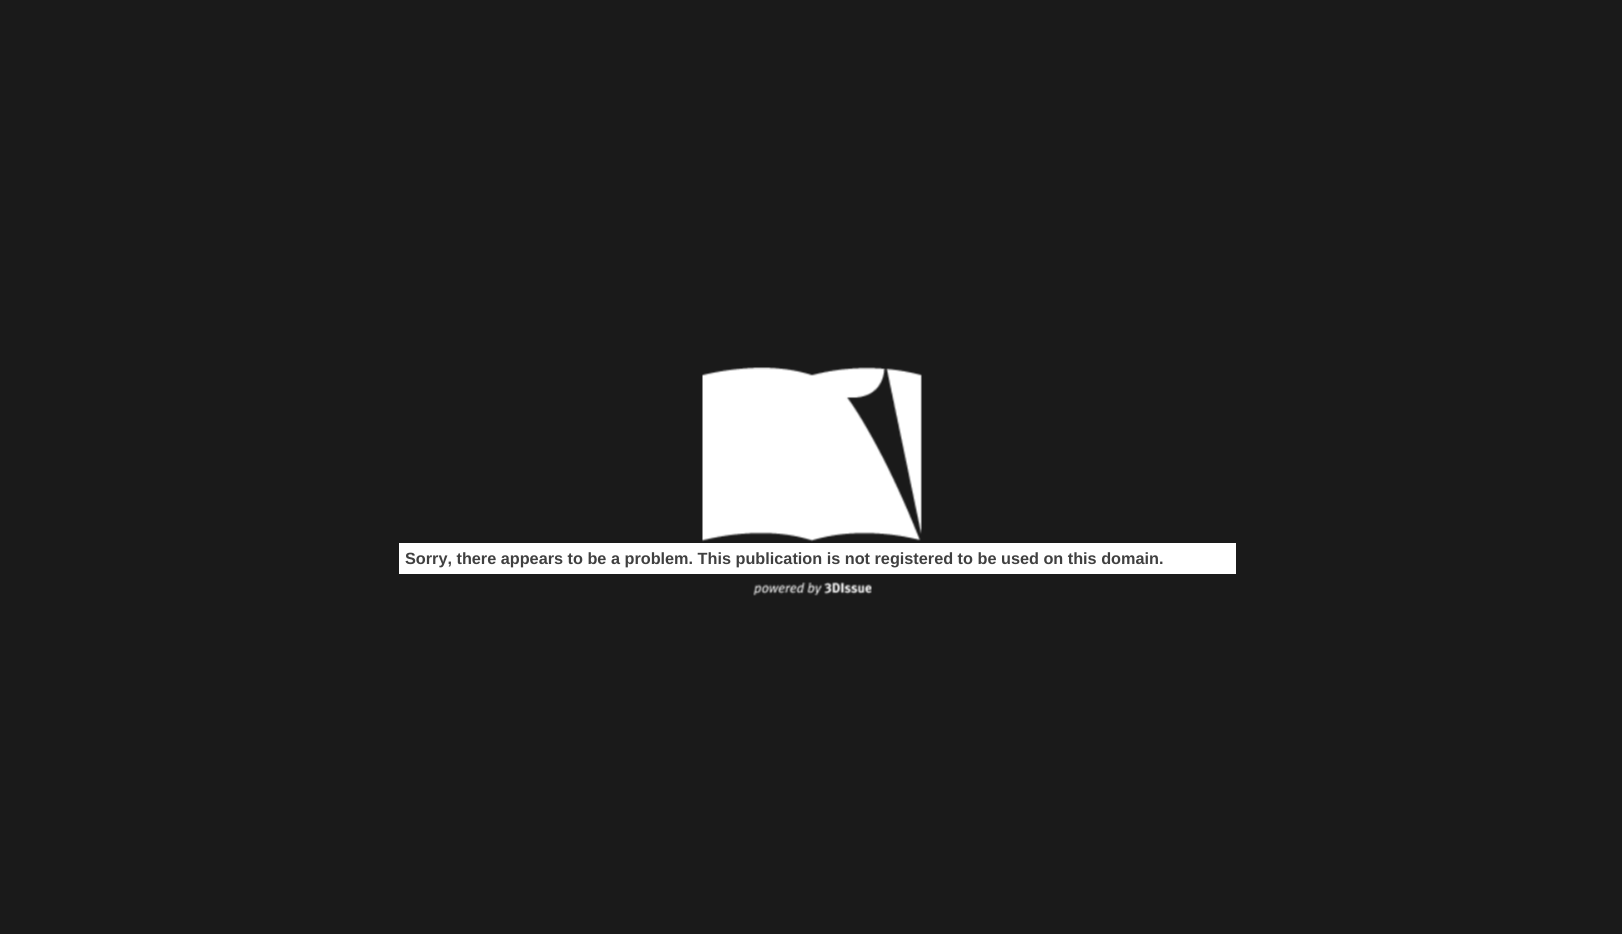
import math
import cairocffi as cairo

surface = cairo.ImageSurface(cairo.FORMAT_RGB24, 1622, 934)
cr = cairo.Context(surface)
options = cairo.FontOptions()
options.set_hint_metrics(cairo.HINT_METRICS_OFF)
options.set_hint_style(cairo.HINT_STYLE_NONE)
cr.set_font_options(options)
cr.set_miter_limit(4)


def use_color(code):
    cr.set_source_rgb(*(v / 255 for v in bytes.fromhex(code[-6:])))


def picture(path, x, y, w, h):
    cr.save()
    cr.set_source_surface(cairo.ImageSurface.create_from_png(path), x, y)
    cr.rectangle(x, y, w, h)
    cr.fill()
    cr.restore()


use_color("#1a1a1a")
cr.paint()
picture("img1.png", 702, 367, 220, 175)
use_color("#ffffff")
cr.rectangle(399, 543, 837, 31)
cr.fill()
cr.select_font_face("Liberation Sans", cairo.FONT_SLANT_NORMAL, cairo.FONT_WEIGHT_BOLD)
cr.set_font_size(16.25)
use_color("#404040")
cr.move_to(405, 564)
cr.show_text("Sorry, there appears to be a problem. This publication is not registered to be used on this domain.")
picture("img2.png", 753, 581, 119, 15)
surface.write_to_png("result.png")
